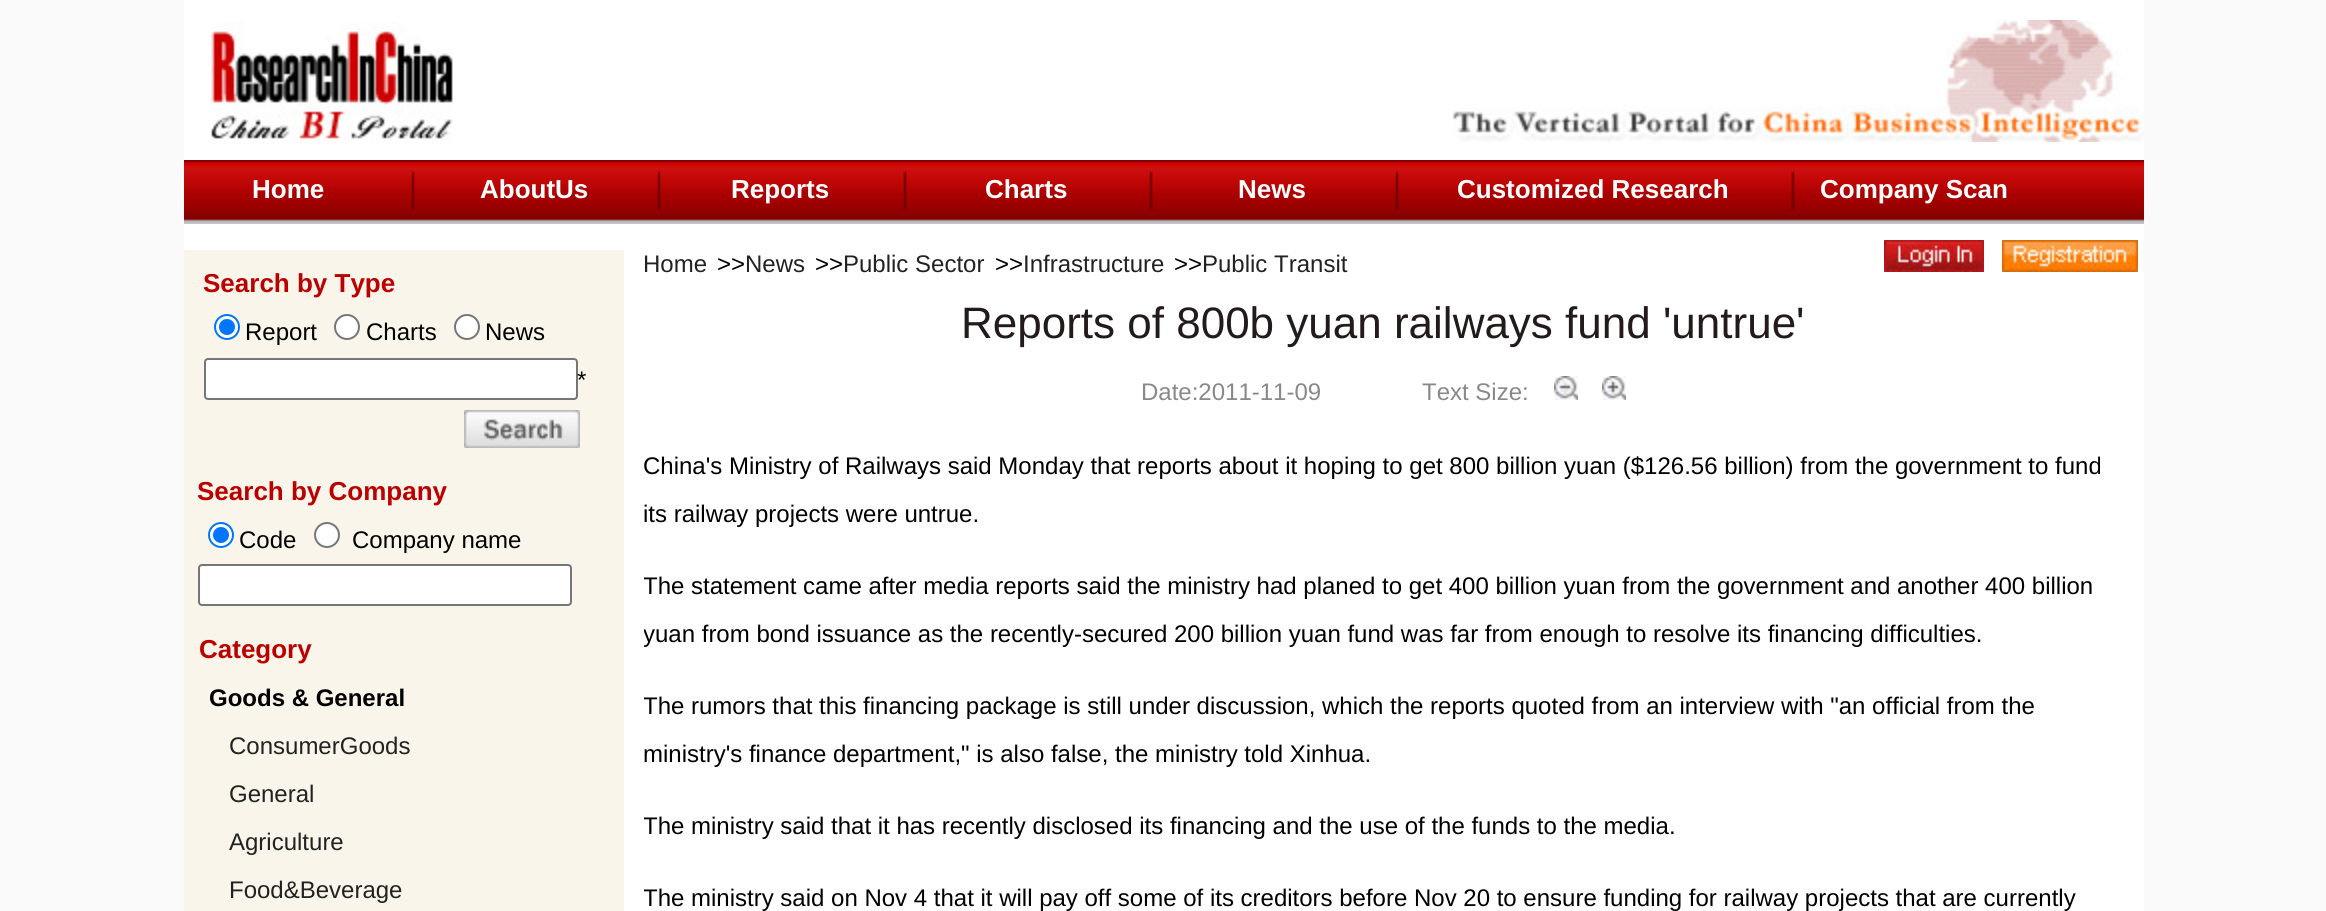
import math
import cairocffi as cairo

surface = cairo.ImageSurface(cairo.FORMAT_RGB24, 2326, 911)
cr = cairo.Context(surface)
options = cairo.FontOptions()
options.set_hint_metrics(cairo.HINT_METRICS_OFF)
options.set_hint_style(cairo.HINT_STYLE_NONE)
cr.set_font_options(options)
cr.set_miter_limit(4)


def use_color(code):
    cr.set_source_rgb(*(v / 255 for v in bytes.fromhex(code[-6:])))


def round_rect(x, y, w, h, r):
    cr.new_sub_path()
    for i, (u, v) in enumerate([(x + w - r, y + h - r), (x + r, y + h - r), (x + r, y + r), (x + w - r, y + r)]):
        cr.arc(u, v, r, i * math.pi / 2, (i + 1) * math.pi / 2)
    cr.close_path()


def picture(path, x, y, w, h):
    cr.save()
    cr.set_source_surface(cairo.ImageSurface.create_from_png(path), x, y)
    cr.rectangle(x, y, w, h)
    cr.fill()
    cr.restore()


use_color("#fafafa")
cr.paint()
use_color("#ffffff")
cr.rectangle(184, 0, 1960, 911)
cr.fill()
picture("img1.png", 211, 22, 242, 122)
picture("img2.png", 1452, 20, 692, 122)
picture("img3.png", 184, 160, 1960, 64)
cr.select_font_face("Liberation Sans", cairo.FONT_SLANT_NORMAL, cairo.FONT_WEIGHT_BOLD)
cr.set_font_size(26)
cr.move_to(252, 198)
cr.show_text("Home")
picture("img4.png", 411, 171, 4, 40)
cr.move_to(480, 198)
cr.show_text("AboutUs")
picture("img4.png", 657, 171, 4, 40)
cr.move_to(731, 198)
cr.show_text("Reports")
picture("img4.png", 903, 171, 4, 40)
cr.move_to(985, 198)
cr.show_text("Charts")
picture("img4.png", 1149, 171, 4, 40)
cr.move_to(1238, 198)
cr.show_text("News")
picture("img4.png", 1395, 171, 4, 40)
cr.move_to(1457, 198)
cr.show_text("Customized Research")
picture("img4.png", 1791, 171, 4, 40)
cr.move_to(1820, 198)
cr.show_text("Company Scan")
use_color("#f9f5ea")
cr.rectangle(184, 250, 440, 661)
cr.fill()
use_color("#bb0000")
cr.move_to(203, 292)
cr.show_text("Search by Type")
use_color("#ffffff")
cr.new_path()
cr.arc(227, 327, 12, 0, 2 * math.pi)
cr.fill_preserve()
use_color("#0075ff")
cr.stroke()
cr.arc(227, 327, 8, 0, 2 * math.pi)
cr.fill()
cr.select_font_face("Liberation Sans")
cr.set_font_size(24)
use_color("#000000")
cr.move_to(245, 340)
cr.show_text("Report")
use_color("#ffffff")
cr.new_path()
cr.arc(347, 327, 12, 0, 2 * math.pi)
cr.fill_preserve()
use_color("#767676")
cr.stroke()
use_color("#000000")
cr.move_to(366, 340)
cr.show_text("Charts")
use_color("#ffffff")
cr.new_path()
cr.arc(467, 327, 12, 0, 2 * math.pi)
cr.fill_preserve()
use_color("#767676")
cr.stroke()
use_color("#000000")
cr.move_to(485, 340)
cr.show_text("News")
use_color("#ffffff")
round_rect(205, 359, 372, 40, 3)
cr.fill_preserve()
use_color("#767676")
cr.stroke()
use_color("#000000")
cr.move_to(577, 388)
cr.show_text("*")
picture("img5.png", 464, 410, 116, 38)
cr.select_font_face("Liberation Sans", cairo.FONT_SLANT_NORMAL, cairo.FONT_WEIGHT_BOLD)
cr.set_font_size(26)
use_color("#bb0000")
cr.move_to(197, 500)
cr.show_text("Search by Company")
use_color("#ffffff")
cr.new_path()
cr.arc(221, 535, 12, 0, 2 * math.pi)
cr.fill_preserve()
use_color("#0075ff")
cr.stroke()
cr.arc(221, 535, 8, 0, 2 * math.pi)
cr.fill()
cr.select_font_face("Liberation Sans")
cr.set_font_size(24)
use_color("#000000")
cr.move_to(239, 548)
cr.show_text("Code")
use_color("#ffffff")
cr.new_path()
cr.arc(327, 535, 12, 0, 2 * math.pi)
cr.fill_preserve()
use_color("#767676")
cr.stroke()
use_color("#000000")
cr.move_to(352, 548)
cr.show_text("Company name")
use_color("#ffffff")
round_rect(199, 565, 372, 40, 3)
cr.fill_preserve()
use_color("#767676")
cr.stroke()
cr.select_font_face("Liberation Sans", cairo.FONT_SLANT_NORMAL, cairo.FONT_WEIGHT_BOLD)
cr.set_font_size(26)
use_color("#bb0000")
cr.move_to(199, 658)
cr.show_text("Category")
cr.set_font_size(24)
use_color("#000000")
cr.move_to(209, 706)
cr.show_text("Goods & General")
cr.select_font_face("Liberation Sans")
use_color("#222222")
cr.move_to(229, 754)
cr.show_text("ConsumerGoods")
cr.move_to(229, 802)
cr.show_text("General")
cr.move_to(229, 850)
cr.show_text("Agriculture")
cr.move_to(229, 898)
cr.show_text("Food&Beverage")
cr.move_to(643, 272)
cr.show_text("Home")
use_color("#000000")
cr.move_to(717, 272)
cr.show_text(">>")
use_color("#222222")
cr.move_to(745, 272)
cr.show_text("News")
use_color("#000000")
cr.move_to(815, 272)
cr.show_text(">>")
use_color("#222222")
cr.move_to(843, 272)
cr.show_text("Public Sector")
use_color("#000000")
cr.move_to(995, 272)
cr.show_text(">>")
use_color("#222222")
cr.move_to(1023, 272)
cr.show_text("Infrastructure")
use_color("#000000")
cr.move_to(1174, 272)
cr.show_text(">>")
use_color("#222222")
cr.move_to(1202, 272)
cr.show_text("Public Transit")
picture("img6.png", 1884, 240, 100, 32)
picture("img7.png", 2002, 240, 136, 32)
cr.set_font_size(44)
use_color("#231b1b")
cr.move_to(961, 338)
cr.show_text("Reports of 800b yuan railways fund 'untrue'")
cr.set_font_size(24)
use_color("#898989")
cr.move_to(1141, 400)
cr.show_text("Date:2011-11-09")
cr.move_to(1422, 400)
cr.show_text("Text Size:")
picture("img8.png", 1554, 376, 24, 24)
picture("img9.png", 1602, 376, 24, 24)
use_color("#000000")
cr.move_to(643, 474)
cr.show_text("China's Ministry of Railways said Monday that reports about it hoping to get 800 billion yuan ($126.56 billion) from the government to fund")
cr.move_to(643, 522)
cr.show_text("its railway projects were untrue.")
cr.save()
cr.rectangle(644, 418, 1480, 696)
cr.clip()
cr.move_to(643, 594)
cr.show_text("The statement came after media reports said the ministry had planed to get 400 billion yuan from the government and another 400 billion")
cr.move_to(643, 642)
cr.show_text("yuan from bond issuance as the recently-secured 200 billion yuan fund was far from enough to resolve its financing difficulties.")
cr.move_to(643, 714)
cr.show_text("The rumors that this financing package is still under discussion, which the reports quoted from an interview with \"an official from the")
cr.restore()
cr.move_to(643, 762)
cr.show_text("ministry's finance department,\" is also false, the ministry told Xinhua.")
cr.save()
cr.rectangle(644, 418, 1480, 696)
cr.clip()
cr.move_to(643, 834)
cr.show_text("The ministry said that it has recently disclosed its financing and the use of the funds to the media.")
cr.move_to(643, 906)
cr.show_text("The ministry said on Nov 4 that it will pay off some of its creditors before Nov 20 to ensure funding for railway projects that are currently")
cr.restore()
surface.write_to_png("result.png")
